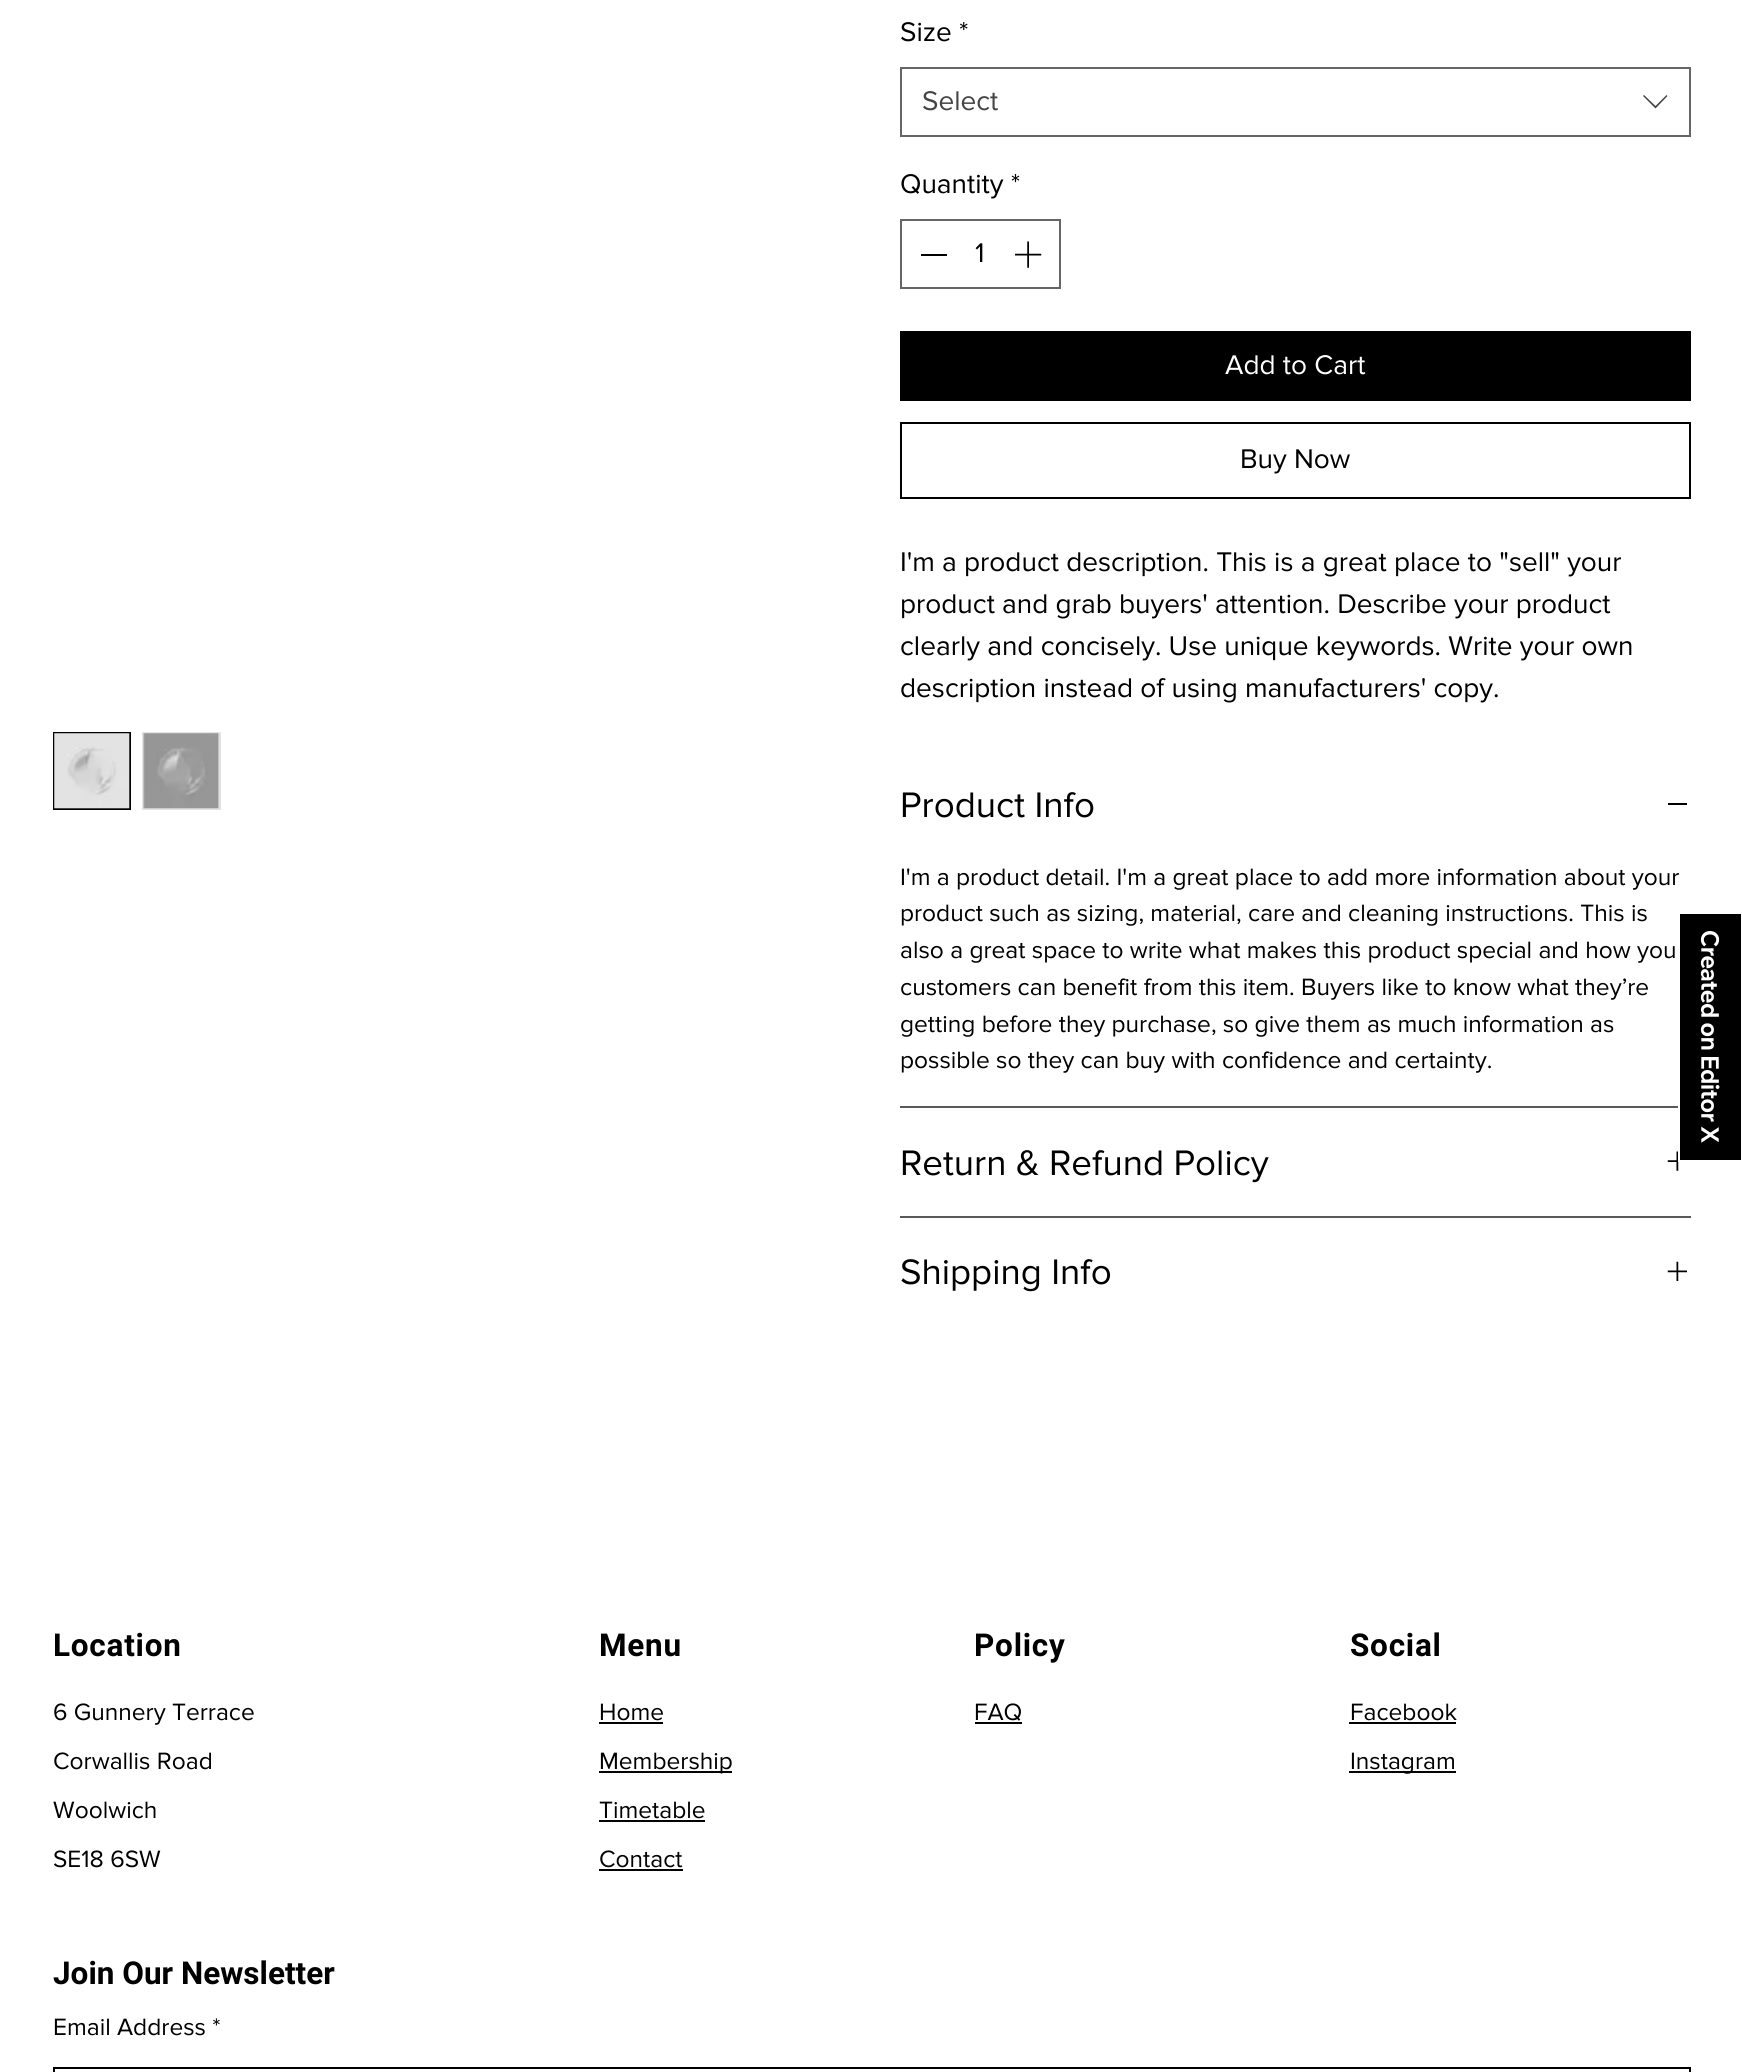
import math
import cairocffi as cairo

surface = cairo.ImageSurface(cairo.FORMAT_RGB24, 1742, 2072)
cr = cairo.Context(surface)
options = cairo.FontOptions()
options.set_hint_metrics(cairo.HINT_METRICS_OFF)
options.set_hint_style(cairo.HINT_STYLE_NONE)
cr.set_font_options(options)
cr.set_miter_limit(4)


def use_color(code):
    cr.set_source_rgb(*(v / 255 for v in bytes.fromhex(code[-6:])))


def spaced_text(x, y, s, letter, word):
    cr.move_to(x, y)
    for ch in s:
        cr.show_text(ch)
        cr.rel_move_to(letter + word * (ch == ' '), 0)


def picture(path, x, y, w, h):
    cr.save()
    cr.set_source_surface(cairo.ImageSurface.create_from_png(path), x, y)
    cr.rectangle(x, y, w, h)
    cr.fill()
    cr.restore()


use_color("#ffffff")
cr.paint()
cr.rectangle(54, 733, 76, 76)
use_color("#000000")
cr.stroke()
picture("img1.png", 54, 733, 76, 76)
use_color("#e3e3e3")
cr.rectangle(142, 732, 79, 78)
cr.fill()
picture("img2.png", 143, 733, 77, 76)
cr.select_font_face("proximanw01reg")
cr.set_font_size(28)
use_color("#000000")
cr.move_to(900, 41)
cr.show_text("Size *")
cr.rectangle(901, 68, 789, 68)
use_color("#666666")
cr.stroke()
use_color("#444444")
cr.move_to(922, 110)
cr.show_text("Select")
cr.set_fill_rule(cairo.FILL_RULE_EVEN_ODD)
cr.new_path()
cr.move_to(1666.5, 95)
cr.line_to(1667.5, 96)
cr.line_to(1655.5, 108.5)
cr.line_to(1643, 96)
cr.line_to(1644, 95)
cr.line_to(1655.5, 106)
cr.close_path()
cr.fill()
use_color("#000000")
cr.move_to(900, 193)
cr.show_text("Quantity *")
cr.rectangle(901, 220, 159, 68)
use_color("#666666")
cr.stroke()
use_color("#000000")
cr.rectangle(921, 254, 26, 2)
cr.fill()
cr.move_to(975, 262)
cr.show_text("1")
picture("img3.png", 1015, 241, 27, 27)
cr.rectangle(900, 331, 791, 70)
cr.fill()
use_color("#ffffff")
cr.move_to(1225, 374)
cr.show_text("Add to Cart")
cr.rectangle(901, 423, 789, 75)
use_color("#000000")
cr.stroke()
cr.move_to(1240, 468)
cr.show_text("Buy Now")
cr.move_to(900, 571)
cr.show_text("I'm a product description. This is a great place to \"sell\" your")
cr.move_to(900, 613)
cr.show_text("product and grab buyers' attention. Describe your product")
cr.move_to(900, 655)
cr.show_text("clearly and concisely. Use unique keywords. Write your own")
cr.move_to(900, 697)
cr.show_text("description instead of using manufacturers' copy.")
use_color("#595959")
cr.rectangle(900, 1106, 778, 2)
cr.fill()
cr.set_font_size(36.75)
use_color("#000000")
cr.move_to(900, 817)
cr.show_text("Product Info")
cr.rectangle(1668, 803, 19, 2)
cr.fill()
cr.set_font_size(24.5)
cr.move_to(900, 885)
cr.show_text("I'm a product detail. I'm a great place to add more information about your")
cr.move_to(900, 921)
cr.show_text("product such as sizing, material, care and cleaning instructions. This is")
cr.move_to(900, 958)
cr.show_text("also a great space to write what makes this product special and how you")
cr.move_to(900, 995)
cr.show_text("customers can benefit from this item. Buyers like to know what they’re")
cr.move_to(900, 1032)
cr.show_text("getting before they purchase, so give them as much information as")
cr.move_to(900, 1068)
cr.show_text("possible so they can buy with confidence and certainty.")
use_color("#595959")
cr.rectangle(900, 1216, 791, 2)
cr.fill()
cr.set_font_size(36.75)
use_color("#000000")
cr.move_to(900, 1175)
cr.show_text("Return & Refund Policy")
picture("img4.png", 1667, 1151, 12, 20)
cr.move_to(900, 1284)
cr.show_text("Shipping Info")
picture("img5.png", 1667, 1261, 20, 20)
cr.rectangle(1679, 913, 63, 248)
cr.fill_preserve()
use_color("#ffffff")
cr.stroke()
picture("img6.png", 1700, 931, 20, 212)
cr.select_font_face("Roboto", cairo.FONT_SLANT_NORMAL, cairo.FONT_WEIGHT_BOLD)
cr.set_font_size(31.5)
use_color("#000000")
spaced_text(53, 1656, "Location", 0.75, 0)
cr.select_font_face("proximanw01reg")
cr.set_font_size(24.5)
cr.move_to(53, 1720)
cr.show_text("6 Gunnery Terrace")
cr.move_to(53, 1769)
cr.show_text("Corwallis Road")
cr.move_to(53, 1818)
cr.show_text("Woolwich")
cr.move_to(53, 1867)
cr.show_text("SE18 6SW")
cr.select_font_face("Roboto", cairo.FONT_SLANT_NORMAL, cairo.FONT_WEIGHT_BOLD)
cr.set_font_size(31.5)
spaced_text(599, 1656, "Menu", 0.75, 0)
cr.select_font_face("proximanw01reg")
cr.set_font_size(24.5)
cr.move_to(599, 1720)
cr.show_text("Home")
cr.rectangle(599, 1722, 64, 2)
cr.fill()
cr.rectangle(599, 1771, 133, 2)
cr.fill()
cr.move_to(599, 1769)
cr.show_text("Membership")
cr.move_to(599, 1818)
cr.show_text("Timetable")
cr.rectangle(599, 1820, 106, 2)
cr.fill()
cr.move_to(599, 1867)
cr.show_text("Contact")
cr.rectangle(599, 1869, 84, 2)
cr.fill()
cr.select_font_face("Roboto", cairo.FONT_SLANT_NORMAL, cairo.FONT_WEIGHT_BOLD)
cr.set_font_size(31.5)
spaced_text(974, 1656, "Policy", 0.75, 0)
cr.select_font_face("proximanw01reg")
cr.set_font_size(24.5)
cr.move_to(974, 1720)
cr.show_text("FAQ")
cr.rectangle(975, 1722, 47, 2)
cr.fill()
cr.select_font_face("Roboto", cairo.FONT_SLANT_NORMAL, cairo.FONT_WEIGHT_BOLD)
cr.set_font_size(31.5)
spaced_text(1350, 1656, "Social", 0.75, 0)
cr.select_font_face("proximanw01reg")
cr.set_font_size(24.5)
cr.move_to(1350, 1720)
cr.show_text("Facebook")
cr.rectangle(1349, 1722, 107, 2)
cr.fill()
cr.rectangle(1349, 1771, 107, 2)
cr.fill()
cr.move_to(1350, 1769)
cr.show_text("Instagram")
cr.select_font_face("Roboto", cairo.FONT_SLANT_NORMAL, cairo.FONT_WEIGHT_BOLD)
cr.set_font_size(31.5)
cr.move_to(53, 1984)
cr.show_text("Join Our Newsletter")
cr.select_font_face("proximanw01reg")
cr.set_font_size(24.5)
cr.move_to(53, 2035)
cr.show_text("Email Address *")
cr.rectangle(54, 2068, 1636, 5)
cr.stroke()
surface.write_to_png("result.png")
